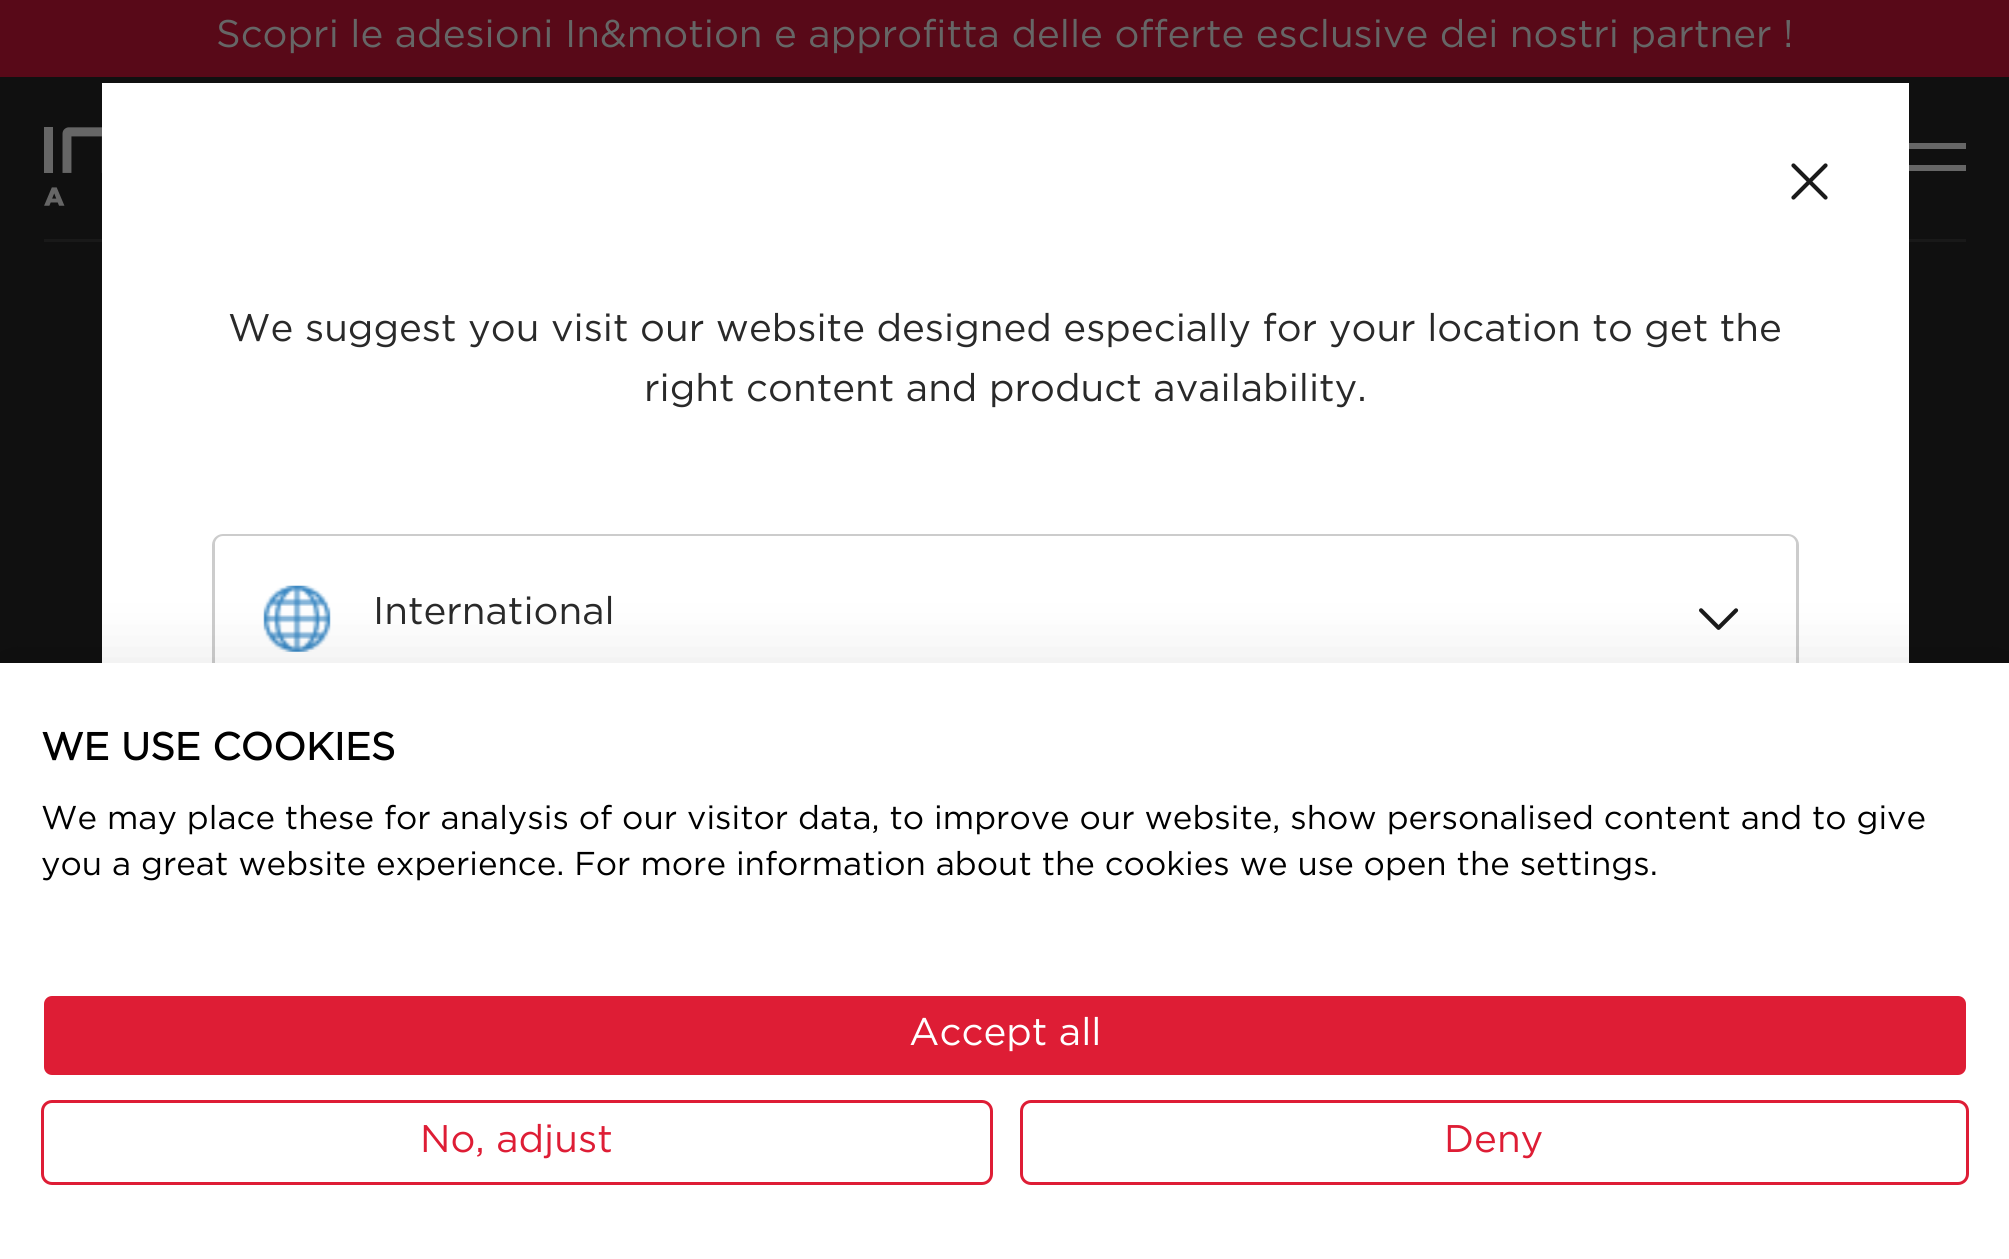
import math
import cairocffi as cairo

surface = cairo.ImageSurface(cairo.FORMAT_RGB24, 2009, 1259)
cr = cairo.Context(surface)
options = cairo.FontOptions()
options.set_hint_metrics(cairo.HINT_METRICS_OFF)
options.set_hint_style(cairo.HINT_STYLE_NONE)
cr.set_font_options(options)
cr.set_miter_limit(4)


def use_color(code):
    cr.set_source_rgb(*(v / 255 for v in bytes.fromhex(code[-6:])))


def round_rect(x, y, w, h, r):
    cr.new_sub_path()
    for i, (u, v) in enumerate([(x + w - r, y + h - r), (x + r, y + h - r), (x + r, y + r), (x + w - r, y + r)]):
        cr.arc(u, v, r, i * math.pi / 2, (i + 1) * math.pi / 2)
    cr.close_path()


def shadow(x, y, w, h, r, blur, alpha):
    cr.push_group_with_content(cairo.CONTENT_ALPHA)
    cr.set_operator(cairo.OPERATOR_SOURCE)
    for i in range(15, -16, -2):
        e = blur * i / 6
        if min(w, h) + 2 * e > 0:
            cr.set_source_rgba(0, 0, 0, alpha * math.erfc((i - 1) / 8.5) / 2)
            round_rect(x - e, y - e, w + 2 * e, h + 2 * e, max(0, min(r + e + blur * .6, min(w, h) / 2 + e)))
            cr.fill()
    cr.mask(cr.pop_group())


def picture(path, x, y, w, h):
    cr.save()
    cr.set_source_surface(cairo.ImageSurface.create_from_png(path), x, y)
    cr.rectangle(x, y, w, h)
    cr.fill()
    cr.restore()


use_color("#101010")
cr.paint()
use_color("#580918")
cr.rectangle(0, 0, 2009, 77)
cr.fill()
cr.select_font_face("Gotham")
cr.set_font_size(38.5)
use_color("#666666")
cr.move_to(216, 47)
cr.show_text("Scopri le adesioni In&motion e approfitta delle offerte esclusive dei nostri partner !")
picture("img1.png", 44, 127, 58, 79)
use_color("#191919")
cr.rectangle(44, 239, 1922, 3)
cr.fill()
use_color("#666666")
cr.rectangle(1909, 143, 57, 6)
cr.fill()
cr.rectangle(1909, 165, 57, 6)
cr.fill()
use_color("#ffffff")
cr.rectangle(102, 83, 1807, 580)
cr.fill()
picture("img2.png", 1791, 163, 37, 37)
use_color("#292929")
cr.move_to(228, 341)
cr.show_text("We suggest you visit our website designed especially for your location to get the")
cr.move_to(644, 401)
cr.show_text("right content and product availability.")
round_rect(213.5, 535.5, 1584, 167, 9.5)
use_color("#cccccc")
cr.set_line_width(3)
cr.stroke()
use_color("#ffffff")
round_rect(215, 536, 1581, 165, 8)
cr.fill()
picture("img3.png", 263, 585, 68, 67)
use_color("#292929")
cr.move_to(373, 624)
cr.show_text("International")
picture("img4.png", 1699, 608, 40, 22)
use_color("#000000")
shadow(0, 663, 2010, 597, 0, 33, 0.1)
use_color("#ffffff")
cr.rectangle(0, 663, 2009, 596)
cr.fill()
cr.select_font_face("Gotham", cairo.FONT_SLANT_NORMAL, cairo.FONT_WEIGHT_BOLD)
use_color("#000000")
cr.move_to(41, 760)
cr.show_text("WE USE COOKIES")
cr.select_font_face("Gotham")
cr.set_font_size(33)
cr.move_to(41, 829)
cr.show_text("We may place these for analysis of our visitor data, to improve our website, show personalised content and to give")
cr.move_to(41, 875)
cr.show_text("you a great website experience. For more information about the cookies we use open the settings.")
use_color("#de1d35")
round_rect(42.5, 994.5, 1925, 82, 9.5)
cr.fill_preserve()
use_color("#ffffff")
cr.stroke()
cr.set_font_size(38.5)
cr.move_to(909, 1045)
cr.show_text("Accept all")
round_rect(42.5, 1101.5, 949, 82, 9.5)
use_color("#de1d35")
cr.stroke()
cr.move_to(420, 1152)
cr.show_text("No, adjust")
round_rect(1021.5, 1101.5, 946, 82, 9.5)
cr.stroke()
cr.move_to(1444, 1152)
cr.show_text("Deny")
surface.write_to_png("result.png")
